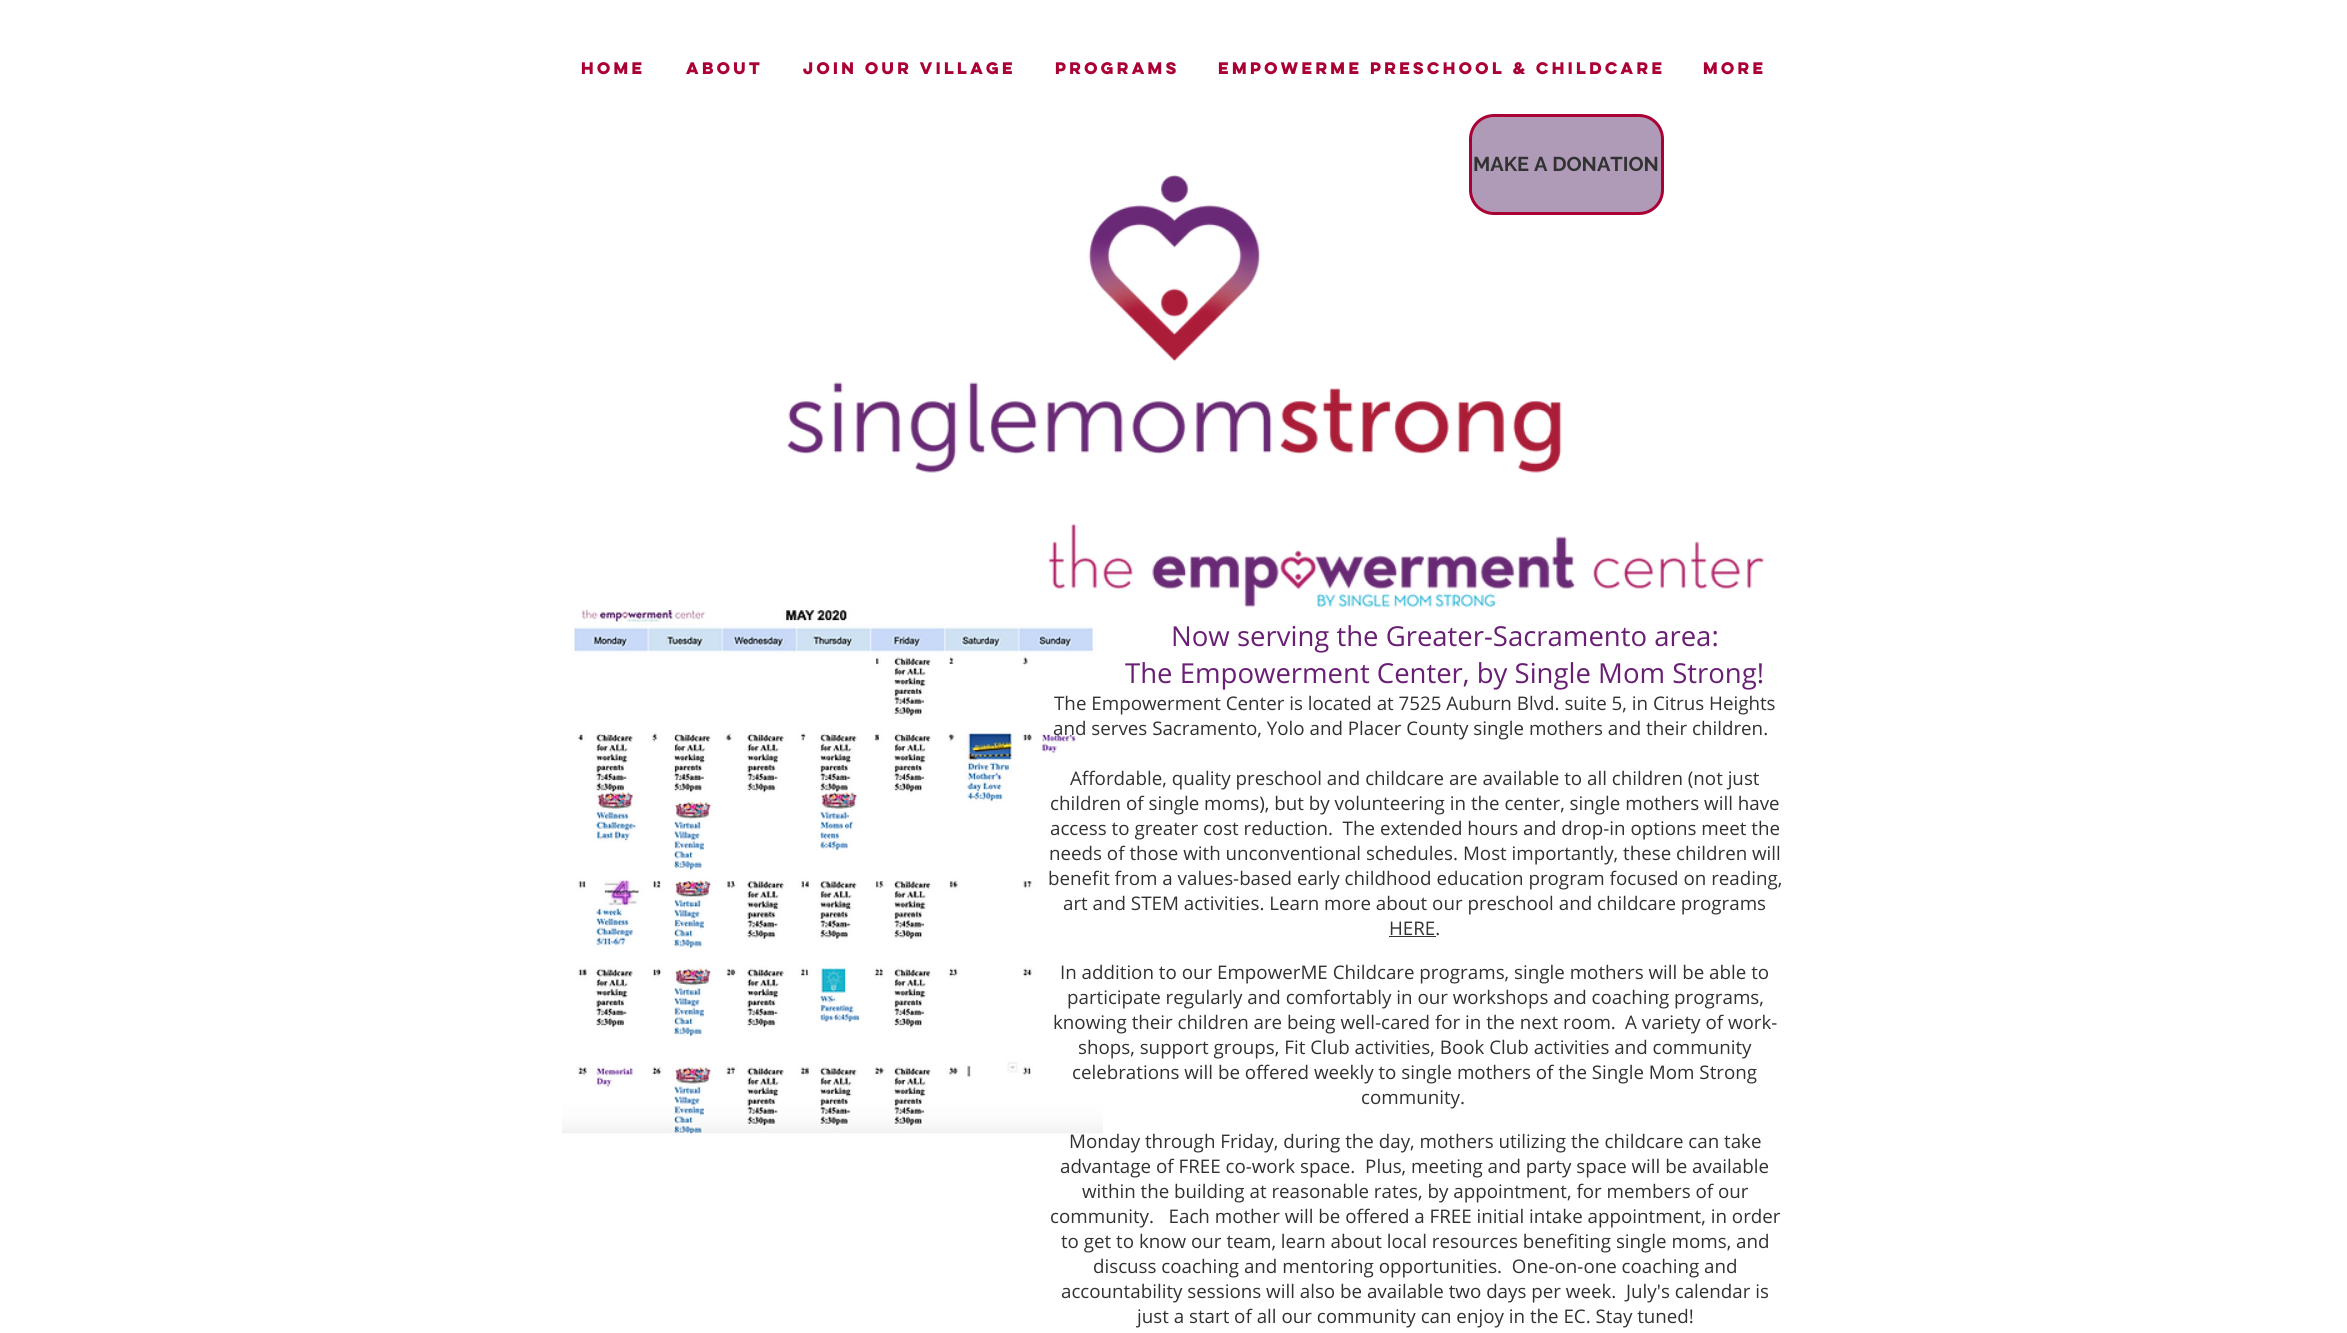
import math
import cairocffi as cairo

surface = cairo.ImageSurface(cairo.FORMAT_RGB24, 2347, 1333)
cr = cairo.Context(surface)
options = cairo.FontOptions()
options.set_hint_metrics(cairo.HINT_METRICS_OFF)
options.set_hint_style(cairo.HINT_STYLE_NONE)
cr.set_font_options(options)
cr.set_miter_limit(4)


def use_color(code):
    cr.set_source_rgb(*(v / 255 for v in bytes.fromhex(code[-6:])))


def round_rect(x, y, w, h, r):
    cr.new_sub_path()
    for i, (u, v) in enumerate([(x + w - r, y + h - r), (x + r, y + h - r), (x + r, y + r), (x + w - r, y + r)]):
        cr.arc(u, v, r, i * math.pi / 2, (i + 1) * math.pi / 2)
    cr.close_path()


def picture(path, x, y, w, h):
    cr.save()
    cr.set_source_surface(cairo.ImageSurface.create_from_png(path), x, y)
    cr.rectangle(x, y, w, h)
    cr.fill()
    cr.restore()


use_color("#ffffff")
cr.paint()
cr.select_font_face("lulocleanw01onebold", cairo.FONT_SLANT_NORMAL, cairo.FONT_WEIGHT_BOLD)
cr.set_font_size(15)
use_color("#aa0033")
cr.move_to(581, 74)
cr.show_text("HOME")
cr.move_to(686, 74)
cr.show_text("ABOUT")
cr.move_to(803, 74)
cr.show_text("JOIN OUR VILLAGE")
cr.move_to(1055, 74)
cr.show_text("PROGRAMS")
cr.move_to(1218, 74)
cr.show_text("EmpowerME PRESCHOOL & CHILDCARE")
cr.move_to(1703, 74)
cr.show_text("More")
use_color("#af9bb7")
round_rect(1470.5, 115.5, 192, 98, 23.5)
cr.fill_preserve()
use_color("#aa0033")
cr.set_line_width(3)
cr.stroke()
cr.select_font_face("Raleway", cairo.FONT_SLANT_NORMAL, cairo.FONT_WEIGHT_BOLD)
cr.set_font_size(20)
use_color("#323232")
cr.move_to(1473, 171)
cr.show_text("MAKE A DONATION")
picture("img1.png", 787, 175, 775, 298)
picture("img2.png", 1048, 523, 716, 85)
picture("img3.png", 562, 610, 541, 524)
cr.select_font_face("Open Sans")
cr.set_font_size(27.5)
use_color("#691f74")
cr.move_to(1171, 646)
cr.show_text("Now serving the Greater-Sacramento area:")
cr.move_to(1125, 683)
cr.show_text("The Empowerment Center, by Single Mom Strong!")
cr.set_font_size(18.75)
use_color("#323232")
cr.move_to(1054, 710)
cr.show_text("The Empowerment Center is located at 7525 Auburn Blvd. suite 5, in Citrus Heights")
cr.move_to(1053, 735)
cr.show_text("and serves Sacramento, Yolo and Placer County single mothers and their children.")
cr.move_to(1070, 785)
cr.show_text("Affordable, quality preschool and childcare are available to all children (not just")
cr.move_to(1050, 810)
cr.show_text("children of single moms), but by volunteering in the center, single mothers will have")
cr.move_to(1050, 835)
cr.show_text("access to greater cost reduction.  The extended hours and drop-in options meet the")
cr.move_to(1049, 860)
cr.show_text("needs of those with unconventional schedules. Most importantly, these children will")
cr.move_to(1048, 885)
cr.show_text("benefit from a values-based early childhood education program focused on reading,")
cr.move_to(1063, 910)
cr.show_text("art and STEM activities. Learn more about our preschool and childcare programs")
cr.move_to(1389, 935)
cr.show_text("HERE.")
use_color("#333333")
cr.rectangle(1389, 936, 47, 1)
cr.fill()
use_color("#323232")
cr.move_to(1060, 979)
cr.show_text("In addition to our EmpowerME Childcare programs, single mothers will be able to")
cr.move_to(1067, 1004)
cr.show_text("participate regularly and comfortably in our workshops and coaching programs,")
cr.move_to(1053, 1029)
cr.show_text("knowing their children are being well-cared for in the next room.")
cr.move_to(1625, 1029)
cr.show_text("A variety of work-")
cr.move_to(1078, 1054)
cr.show_text("shops, support groups, Fit Club activities, Book Club activities and community")
cr.move_to(1072, 1079)
cr.show_text("celebrations will be offered weekly to single mothers of the Single Mom Strong")
cr.move_to(1361, 1104)
cr.show_text("community.")
cr.move_to(1069, 1148)
cr.show_text("Monday through Friday, during the day, mothers utilizing the childcare can take")
cr.move_to(1060, 1173)
cr.show_text("advantage of FREE co-work space.  Plus, meeting and party space will be available")
cr.move_to(1082, 1198)
cr.show_text("within the building at reasonable rates, by appointment, for members of our")
cr.move_to(1050, 1223)
cr.show_text("community.   Each mother will be offered a FREE initial intake appointment, in order")
cr.move_to(1061, 1248)
cr.show_text("to get to know our team, learn about local resources benefiting single moms, and")
cr.move_to(1093, 1273)
cr.show_text("discuss coaching and mentoring opportunities.  One-on-one coaching and")
cr.move_to(1061, 1298)
cr.show_text("accountability sessions will also be available two days per week.  July's calendar is")
cr.move_to(1137, 1323)
cr.show_text("just a start of all our community can enjoy in the EC. Stay tuned!")
surface.write_to_png("result.png")
